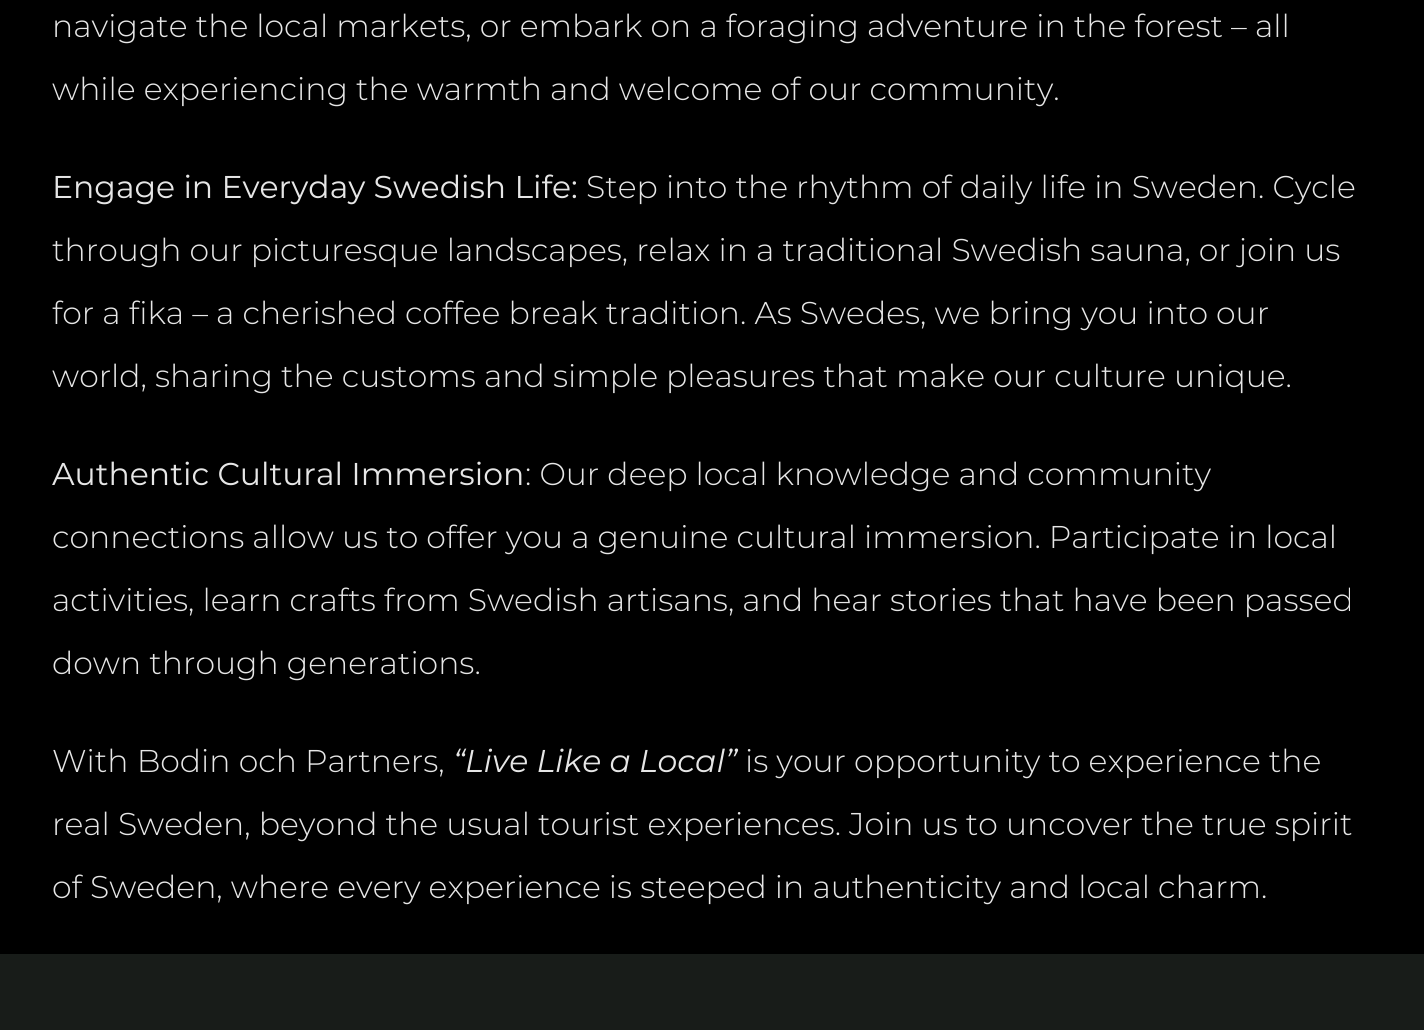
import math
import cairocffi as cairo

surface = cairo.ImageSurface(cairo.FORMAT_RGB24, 1424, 1030)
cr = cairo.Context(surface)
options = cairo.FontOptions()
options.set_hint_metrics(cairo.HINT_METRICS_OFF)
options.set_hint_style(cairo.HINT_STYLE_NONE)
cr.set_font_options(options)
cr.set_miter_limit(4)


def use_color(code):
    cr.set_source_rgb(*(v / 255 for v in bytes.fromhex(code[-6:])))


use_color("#000000")
cr.paint()
cr.select_font_face("Montserrat Light")
cr.set_font_size(31.5)
use_color("#e6e6e6")
cr.move_to(52, 37)
cr.show_text("navigate the local markets, or embark on a foraging adventure in the forest – all")
cr.move_to(52, 100)
cr.show_text("while experiencing the warmth and welcome of our community.")
cr.select_font_face("Montserrat")
cr.move_to(52, 198)
cr.show_text("Engage in Everyday Swedish Life:")
cr.select_font_face("Montserrat Light")
cr.move_to(586, 198)
cr.show_text("Step into the rhythm of daily life in Sweden. Cycle")
cr.move_to(52, 261)
cr.show_text("through our picturesque landscapes, relax in a traditional Swedish sauna, or join us")
cr.move_to(52, 324)
cr.show_text("for a fika – a cherished coffee break tradition. As Swedes, we bring you into our")
cr.move_to(52, 387)
cr.show_text("world, sharing the customs and simple pleasures that make our culture unique.")
cr.select_font_face("Montserrat")
cr.move_to(52, 485)
cr.show_text("Authentic Cultural Immersion")
cr.select_font_face("Montserrat Light")
cr.move_to(525, 485)
cr.show_text(": Our deep local knowledge and community")
cr.move_to(52, 548)
cr.show_text("connections allow us to offer you a genuine cultural immersion. Participate in local")
cr.move_to(52, 611)
cr.show_text("activities, learn crafts from Swedish artisans, and hear stories that have been passed")
cr.move_to(52, 674)
cr.show_text("down through generations.")
cr.move_to(52, 772)
cr.show_text("With Bodin och Partners,")
cr.select_font_face("Montserrat", cairo.FONT_SLANT_ITALIC)
cr.move_to(453, 772)
cr.show_text("“Live Like a Local”")
cr.select_font_face("Montserrat Light")
cr.move_to(745, 772)
cr.show_text("is your opportunity to experience the")
cr.move_to(52, 835)
cr.show_text("real Sweden, beyond the usual tourist experiences. Join us to uncover the true spirit")
cr.move_to(52, 898)
cr.show_text("of Sweden, where every experience is steeped in authenticity and local charm.")
use_color("#181c19")
cr.rectangle(0, 954, 1424, 76)
cr.fill()
surface.write_to_png("result.png")
